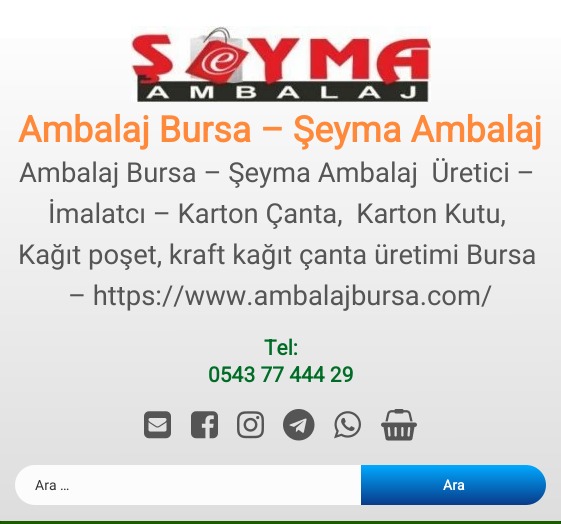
import math
import cairocffi as cairo

surface = cairo.ImageSurface(cairo.FORMAT_RGB24, 561, 524)
cr = cairo.Context(surface)
options = cairo.FontOptions()
options.set_hint_metrics(cairo.HINT_METRICS_OFF)
options.set_hint_style(cairo.HINT_STYLE_NONE)
cr.set_font_options(options)
cr.set_miter_limit(4)


def use_color(code):
    cr.set_source_rgb(*(v / 255 for v in bytes.fromhex(code[-6:])))


def round_rect(x, y, w, h, r):
    cr.new_sub_path()
    for i, (u, v) in enumerate([(x + w - r, y + h - r), (x + r, y + h - r), (x + r, y + r), (x + w - r, y + r)]):
        cr.arc(u, v, r, i * math.pi / 2, (i + 1) * math.pi / 2)
    cr.close_path()


def picture(path, x, y, w, h):
    cr.save()
    cr.set_source_surface(cairo.ImageSurface.create_from_png(path), x, y)
    cr.rectangle(x, y, w, h)
    cr.fill()
    cr.restore()


use_color("#ffffff")
cr.paint()
gradient = cairo.LinearGradient(280, 0, 281, 521)
gradient.add_color_stop_rgba(0, 1, 1, 1, 1)
gradient.add_color_stop_rgba(1, 0.867, 0.867, 0.867, 1)
cr.set_source(gradient)
cr.rectangle(0, 38, 561, 483)
cr.fill()
picture("img1.png", 131, 26, 300, 76)
cr.select_font_face("Roboto", cairo.FONT_SLANT_NORMAL, cairo.FONT_WEIGHT_BOLD)
cr.set_font_size(36)
use_color("#ff893a")
cr.move_to(18, 142)
cr.show_text("Ambalaj Bursa – Şeyma Ambalaj")
cr.select_font_face("Roboto")
cr.set_font_size(27.4)
use_color("#555555")
cr.move_to(19, 182)
cr.show_text("Ambalaj Bursa – Şeyma Ambalaj  Üretici –")
cr.move_to(48, 223)
cr.show_text("İmalatcı – Karton Çanta,  Karton Kutu,")
cr.move_to(18, 264)
cr.show_text("Kağıt poşet, kraft kağıt çanta üretimi Bursa")
cr.move_to(68, 305)
cr.show_text("– https://www.ambalajbursa.com/")
cr.select_font_face("Roboto", cairo.FONT_SLANT_NORMAL, cairo.FONT_WEIGHT_BOLD)
cr.set_font_size(21)
use_color("#006d26")
cr.move_to(264, 355)
cr.show_text("Tel:")
cr.move_to(208, 382)
cr.show_text("0543 77 444 29")
picture("img2.png", 144, 411, 27, 28)
picture("img3.png", 191, 411, 27, 28)
picture("img4.png", 237, 411, 27, 28)
picture("img5.png", 283, 409, 32, 32)
picture("img6.png", 334, 411, 27, 28)
picture("img7.png", 381, 409, 36, 32)
cr.set_source_rgba(1, 1, 1, 0.9)
round_rect(15, 465, 529, 40, 20)
cr.fill()
cr.select_font_face("Roboto")
cr.set_font_size(14)
use_color("#333333")
cr.move_to(35, 490)
cr.show_text("Ara …")
gradient = cairo.LinearGradient(454, 465, 454, 505)
gradient.add_color_stop_rgba(0, 0, 0.663, 1, 1)
gradient.add_color_stop_rgba(1, 0.035, 0.227, 0.537, 1)
cr.set_source(gradient)
cr.new_path()
cr.move_to(361, 465)
cr.line_to(526, 465)
cr.curve_to(537, 465, 546, 474, 546, 485)
cr.curve_to(546, 496, 537, 505, 526, 505)
cr.line_to(361, 505)
cr.close_path()
cr.fill()
cr.select_font_face("Roboto", cairo.FONT_SLANT_NORMAL, cairo.FONT_WEIGHT_BOLD)
use_color("#ffffff")
cr.move_to(443, 490)
cr.show_text("Ara")
gradient = cairo.LinearGradient(281, 521, 281, 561)
gradient.add_color_stop_rgba(0, 0, 0.247, 0.039, 1)
gradient.add_color_stop_rgba(1, 0, 0.149, 0.016, 1)
cr.set_source(gradient)
cr.rectangle(0, 521, 561, 2)
cr.fill()
gradient = cairo.LinearGradient(281, 521, 281, 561)
gradient.add_color_stop_rgba(0, 0.098, 0.361, 0, 1)
gradient.add_color_stop_rgba(1, 0.176, 0.373, 0.016, 1)
cr.set_source(gradient)
round_rect(0, 521, 561, 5, 2)
cr.fill()
surface.write_to_png("result.png")
